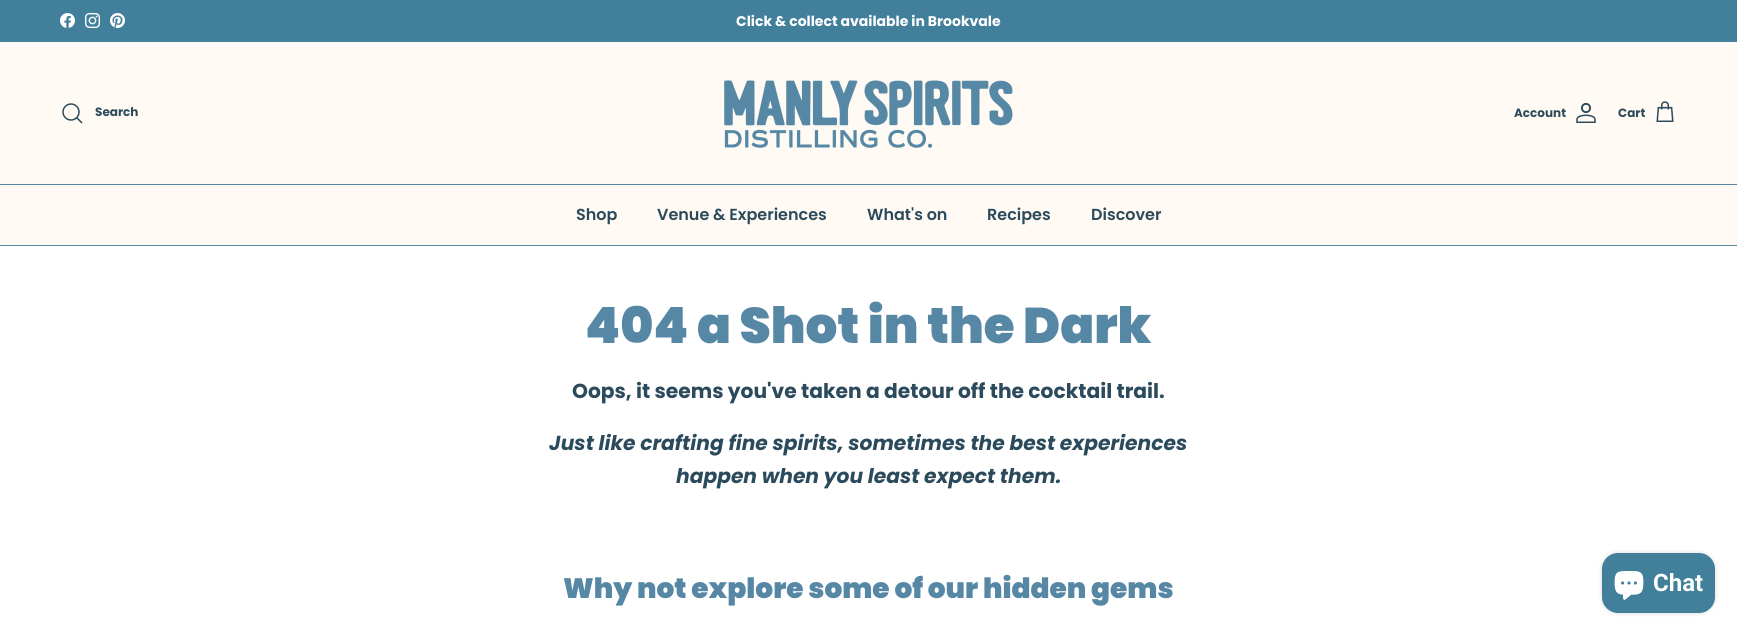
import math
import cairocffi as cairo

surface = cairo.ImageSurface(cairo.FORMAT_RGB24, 1737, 634)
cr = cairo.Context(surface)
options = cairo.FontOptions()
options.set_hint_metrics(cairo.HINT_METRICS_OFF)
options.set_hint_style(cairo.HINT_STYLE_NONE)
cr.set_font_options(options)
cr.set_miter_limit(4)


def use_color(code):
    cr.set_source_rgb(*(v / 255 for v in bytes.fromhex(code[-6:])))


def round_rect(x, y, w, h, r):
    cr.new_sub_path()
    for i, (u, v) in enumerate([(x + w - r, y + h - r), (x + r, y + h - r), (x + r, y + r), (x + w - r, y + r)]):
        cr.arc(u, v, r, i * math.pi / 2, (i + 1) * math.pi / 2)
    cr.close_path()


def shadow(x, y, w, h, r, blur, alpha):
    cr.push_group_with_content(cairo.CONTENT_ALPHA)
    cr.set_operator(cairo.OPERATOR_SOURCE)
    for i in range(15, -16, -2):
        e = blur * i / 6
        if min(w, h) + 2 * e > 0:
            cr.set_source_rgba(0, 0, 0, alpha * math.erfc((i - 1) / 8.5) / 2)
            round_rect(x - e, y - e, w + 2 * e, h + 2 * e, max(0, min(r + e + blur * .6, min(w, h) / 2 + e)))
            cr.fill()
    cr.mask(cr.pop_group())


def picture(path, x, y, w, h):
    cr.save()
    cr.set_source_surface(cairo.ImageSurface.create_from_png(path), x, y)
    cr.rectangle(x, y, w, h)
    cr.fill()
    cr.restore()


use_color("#ffffff")
cr.paint()
use_color("#427f9b")
cr.rectangle(0, 0, 1737, 42)
cr.fill()
picture("img1.png", 60, 13, 15, 15)
picture("img2.png", 85, 13, 15, 15)
picture("img3.png", 110, 13, 15, 15)
cr.select_font_face("Poppins", cairo.FONT_SLANT_NORMAL, cairo.FONT_WEIGHT_BOLD)
cr.set_font_size(14)
use_color("#ffffff")
cr.move_to(736, 26)
cr.show_text("Click & collect available in Brookvale")
use_color("#fffaf3")
cr.rectangle(0, 42, 1737, 142)
cr.fill()
use_color("#5687a4")
cr.rectangle(0, 184, 1737, 1)
cr.fill()
cr.arc(71, 112, 8, 0, 2 * math.pi)
use_color("#2b4a5b")
cr.set_line_width(1.5)
cr.stroke()
cr.set_font_size(12)
cr.move_to(95, 116)
cr.show_text("Search")
cr.new_path()
cr.move_to(77, 118)
cr.line_to(81.5, 122.5)
cr.set_line_cap(cairo.LINE_CAP_SQUARE)
cr.stroke()
picture("img4.png", 724, 80, 289, 68)
cr.move_to(1514, 117)
cr.show_text("Account")
picture("img5.png", 1576, 103, 20, 20)
cr.move_to(1618, 117)
cr.show_text("Cart")
picture("img6.png", 1656, 101, 18, 21)
use_color("#5687a4")
cr.rectangle(0, 245, 1737, 1)
cr.fill()
use_color("#fffaf3")
cr.rectangle(0, 185, 1737, 60)
cr.fill()
cr.select_font_face("Poppins SemiBold")
cr.set_font_size(16)
use_color("#2b4a5b")
cr.move_to(576, 220)
cr.show_text("Shop")
cr.move_to(657, 220)
cr.show_text("Venue & Experiences")
cr.move_to(867, 220)
cr.show_text("What's on")
cr.move_to(987, 220)
cr.show_text("Recipes")
cr.move_to(1091, 220)
cr.show_text("Discover")
cr.select_font_face("Poppins Black")
cr.set_font_size(50)
use_color("#5687a4")
cr.move_to(585, 343)
cr.show_text("404 a Shot in the Dark")
cr.select_font_face("Poppins", cairo.FONT_SLANT_NORMAL, cairo.FONT_WEIGHT_BOLD)
cr.set_font_size(20.25)
use_color("#2b4a5b")
cr.move_to(572, 398)
cr.show_text("Oops, it seems you've taken a detour off the cocktail trail.")
cr.select_font_face("Poppins", cairo.FONT_SLANT_ITALIC, cairo.FONT_WEIGHT_BOLD)
cr.move_to(549, 450)
cr.show_text("Just like crafting fine spirits, sometimes the best experiences")
cr.move_to(676, 483)
cr.show_text("happen when you least expect them.")
cr.select_font_face("Poppins Black")
cr.set_font_size(28)
use_color("#5687a4")
cr.move_to(563, 598)
cr.show_text("Why not explore some of our hidden gems")
use_color("#000000")
shadow(1602, 553, 113, 60, 16, 2.5, 0.15)
use_color("#427f9b")
round_rect(1602, 553, 113, 60, 16)
cr.fill()
picture("img7.png", 1614, 571, 30, 29)
cr.select_font_face("Roboto", cairo.FONT_SLANT_NORMAL, cairo.FONT_WEIGHT_BOLD)
cr.set_font_size(24)
use_color("#ffffff")
cr.move_to(1653, 591)
cr.show_text("Chat")
surface.write_to_png("result.png")
